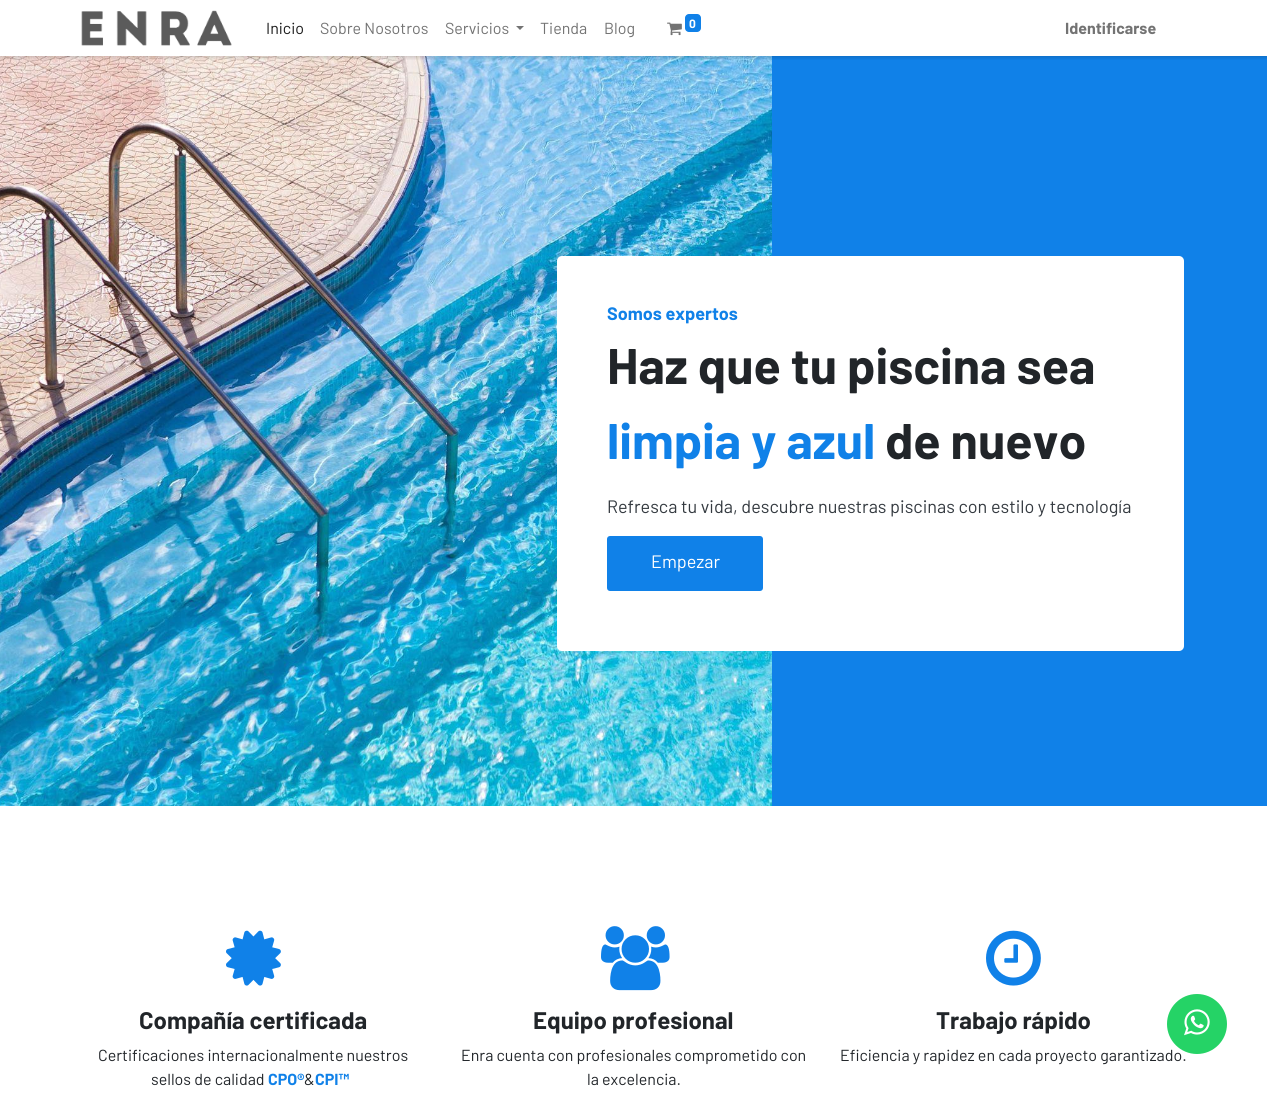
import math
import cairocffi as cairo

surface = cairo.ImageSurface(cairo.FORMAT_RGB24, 1267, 1094)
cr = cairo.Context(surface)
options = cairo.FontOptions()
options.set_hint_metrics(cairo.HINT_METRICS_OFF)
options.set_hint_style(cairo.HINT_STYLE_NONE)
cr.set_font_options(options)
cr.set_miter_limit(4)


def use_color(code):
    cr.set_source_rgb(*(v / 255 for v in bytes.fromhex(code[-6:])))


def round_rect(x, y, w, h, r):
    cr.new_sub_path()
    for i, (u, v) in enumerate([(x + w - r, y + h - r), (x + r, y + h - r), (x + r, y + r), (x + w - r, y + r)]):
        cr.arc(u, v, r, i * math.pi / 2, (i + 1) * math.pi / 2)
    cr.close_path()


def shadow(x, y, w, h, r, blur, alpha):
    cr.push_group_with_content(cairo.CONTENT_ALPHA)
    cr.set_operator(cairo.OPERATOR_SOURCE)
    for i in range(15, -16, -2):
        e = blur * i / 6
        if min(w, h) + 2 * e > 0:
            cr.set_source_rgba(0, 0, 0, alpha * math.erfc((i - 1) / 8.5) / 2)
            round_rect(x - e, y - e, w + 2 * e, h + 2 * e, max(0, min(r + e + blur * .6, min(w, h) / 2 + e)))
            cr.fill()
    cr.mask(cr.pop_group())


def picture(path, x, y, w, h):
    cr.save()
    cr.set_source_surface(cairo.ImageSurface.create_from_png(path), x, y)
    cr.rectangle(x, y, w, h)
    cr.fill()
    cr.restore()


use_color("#ffffff")
cr.paint()
picture("img3.png", 0, 56, 772, 750)
use_color("#1081e8")
cr.rectangle(772, 56, 495, 750)
cr.fill()
cr.save()
cr.rectangle(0, 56, 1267, 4)
cr.clip()
use_color("#000000")
shadow(0, 2, 1267, 56, 0, 2, 0.15)
cr.restore()
picture("img1.png", 81, 10, 151, 36)
cr.select_font_face("Barlow")
cr.set_font_size(16)
use_color("#1a1a1a")
cr.move_to(266, 34)
cr.show_text("Inicio")
use_color("#737373")
cr.move_to(320, 34)
cr.show_text("Sobre Nosotros")
cr.move_to(445, 34)
cr.show_text("Servicios")
cr.new_path()
cr.move_to(516, 26)
cr.line_to(524, 26)
cr.line_to(520, 30)
cr.close_path()
cr.fill()
cr.move_to(540, 34)
cr.show_text("Tienda")
cr.move_to(604, 34)
cr.show_text("Blog")
picture("img2.png", 667, 22, 15, 14)
use_color("#1081e8")
round_rect(685, 14, 16, 18, 4)
cr.fill()
cr.select_font_face("Barlow", cairo.FONT_SLANT_NORMAL, cairo.FONT_WEIGHT_BOLD)
cr.set_font_size(12)
use_color("#ffffff")
cr.move_to(689, 28)
cr.show_text("0")
cr.set_font_size(16)
use_color("#737373")
cr.move_to(1065, 34)
cr.show_text("Identificarse")
use_color("#ffffff")
round_rect(557, 256, 627, 395, 5)
cr.fill()
cr.set_font_size(18)
use_color("#1081e8")
cr.move_to(607, 320)
cr.show_text("Somos expertos")
cr.set_font_size(50)
use_color("#212529")
cr.move_to(607, 384)
cr.show_text("Haz que tu piscina sea")
use_color("#1081e8")
cr.move_to(607, 459)
cr.show_text("limpia y azul")
use_color("#212529")
cr.move_to(885, 459)
cr.show_text("de nuevo")
cr.select_font_face("Barlow")
cr.set_font_size(18)
use_color("#343a40")
cr.move_to(607, 513)
cr.show_text("Refresca tu vida, descubre nuestras piscinas con estilo y tecnología")
use_color("#1081e8")
round_rect(607, 536, 156, 55, 3)
cr.fill()
use_color("#ffffff")
cr.move_to(651, 568)
cr.show_text("Empezar")
picture("img4.png", 226, 930, 55, 56)
cr.select_font_face("Barlow", cairo.FONT_SLANT_NORMAL, cairo.FONT_WEIGHT_BOLD)
cr.set_font_size(24)
use_color("#212529")
cr.move_to(139, 1029)
cr.show_text("Compañía certificada")
cr.select_font_face("Barlow")
cr.set_font_size(16)
cr.move_to(98, 1061)
cr.show_text("Certificaciones internacionalmente nuestros")
cr.move_to(151, 1085)
cr.show_text("sellos de calidad")
cr.select_font_face("Barlow", cairo.FONT_SLANT_NORMAL, cairo.FONT_WEIGHT_BOLD)
use_color("#1081e8")
cr.move_to(268, 1085)
cr.show_text("CPO®")
cr.select_font_face("Barlow")
use_color("#212529")
cr.move_to(304, 1085)
cr.show_text("&")
cr.select_font_face("Barlow", cairo.FONT_SLANT_NORMAL, cairo.FONT_WEIGHT_BOLD)
use_color("#1081e8")
cr.move_to(315, 1085)
cr.show_text("CPI™")
picture("img5.png", 601, 926, 69, 65)
cr.set_font_size(24)
use_color("#212529")
cr.move_to(533, 1029)
cr.show_text("Equipo profesional")
cr.select_font_face("Barlow")
cr.set_font_size(16)
cr.move_to(461, 1061)
cr.show_text("Enra cuenta con profesionales comprometido con")
cr.move_to(587, 1085)
cr.show_text("la excelencia.")
picture("img6.png", 986, 930, 55, 56)
cr.select_font_face("Barlow", cairo.FONT_SLANT_NORMAL, cairo.FONT_WEIGHT_BOLD)
cr.set_font_size(24)
cr.move_to(936, 1029)
cr.show_text("Trabajo rápido")
cr.select_font_face("Barlow")
cr.set_font_size(16)
cr.move_to(840, 1061)
cr.show_text("Eficiencia y rapidez en cada proyecto garantizado.")
use_color("#25d366")
cr.new_path()
cr.arc(1197, 1024, 30, 0, 2 * math.pi)
cr.fill()
picture("img7.png", 1184, 1009, 26, 27)
surface.write_to_png("result.png")
